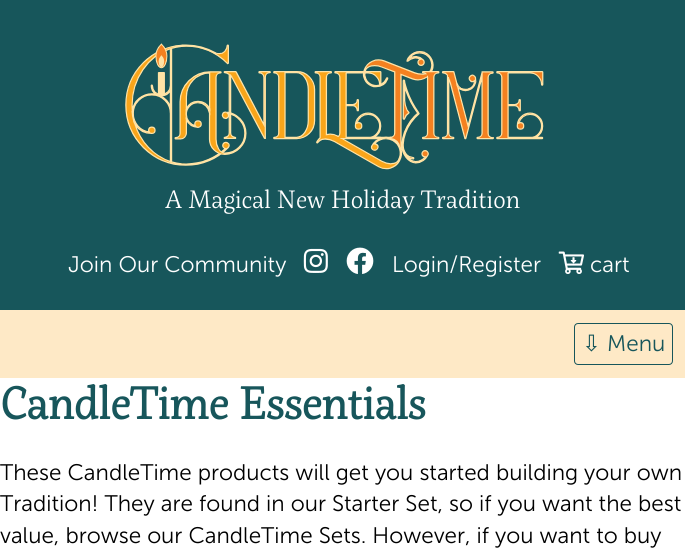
import math
import cairocffi as cairo

surface = cairo.ImageSurface(cairo.FORMAT_RGB24, 685, 549)
cr = cairo.Context(surface)
options = cairo.FontOptions()
options.set_hint_metrics(cairo.HINT_METRICS_OFF)
options.set_hint_style(cairo.HINT_STYLE_NONE)
cr.set_font_options(options)
cr.set_miter_limit(4)


def use_color(code):
    cr.set_source_rgb(*(v / 255 for v in bytes.fromhex(code[-6:])))


def round_rect(x, y, w, h, r):
    cr.new_sub_path()
    for i, (u, v) in enumerate([(x + w - r, y + h - r), (x + r, y + h - r), (x + r, y + r), (x + w - r, y + r)]):
        cr.arc(u, v, r, i * math.pi / 2, (i + 1) * math.pi / 2)
    cr.close_path()


def picture(path, x, y, w, h):
    cr.save()
    cr.set_source_surface(cairo.ImageSurface.create_from_png(path), x, y)
    cr.rectangle(x, y, w, h)
    cr.fill()
    cr.restore()


use_color("#ffffff")
cr.paint()
use_color("#17565b")
cr.rectangle(0, 0, 685, 310)
cr.fill()
picture("img1.png", 125, 43, 419, 127)
cr.select_font_face("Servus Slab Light")
cr.set_font_size(25)
use_color("#ffffff")
cr.move_to(165, 208)
cr.show_text("A Magical New Holiday Tradition")
cr.select_font_face("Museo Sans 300 Light")
cr.set_font_size(22.5)
cr.move_to(68, 272)
cr.show_text("Join Our Community")
picture("img2.png", 303, 248, 25, 25)
picture("img3.png", 346, 247, 28, 27)
cr.move_to(392, 272)
cr.show_text("Login/Register")
picture("img4.png", 558, 251, 26, 23)
cr.move_to(590, 272)
cr.show_text("cart")
use_color("#fee9c6")
cr.rectangle(0, 310, 685, 68)
cr.fill()
round_rect(574.5, 323.5, 98, 41, 3.5)
use_color("#17565b")
cr.set_line_width(1)
cr.stroke()
cr.select_font_face("DejaVu Sans")
cr.move_to(582, 351)
cr.show_text("⇩")
cr.select_font_face("Museo Sans 300 Light")
cr.move_to(607, 351)
cr.show_text("Menu")
cr.select_font_face("Servus Slab", cairo.FONT_SLANT_NORMAL, cairo.FONT_WEIGHT_BOLD)
cr.set_font_size(45)
cr.move_to(0, 419)
cr.show_text("CandleTime Essentials")
cr.select_font_face("Museo Sans 300 Light")
cr.set_font_size(22.5)
use_color("#000000")
cr.move_to(0, 480)
cr.show_text("These CandleTime products will get you started building your own")
cr.move_to(0, 511)
cr.show_text("Tradition! They are found in our Starter Set, so if you want the best")
cr.move_to(0, 543)
cr.show_text("value, browse our CandleTime Sets. However, if you want to buy")
surface.write_to_png("result.png")
